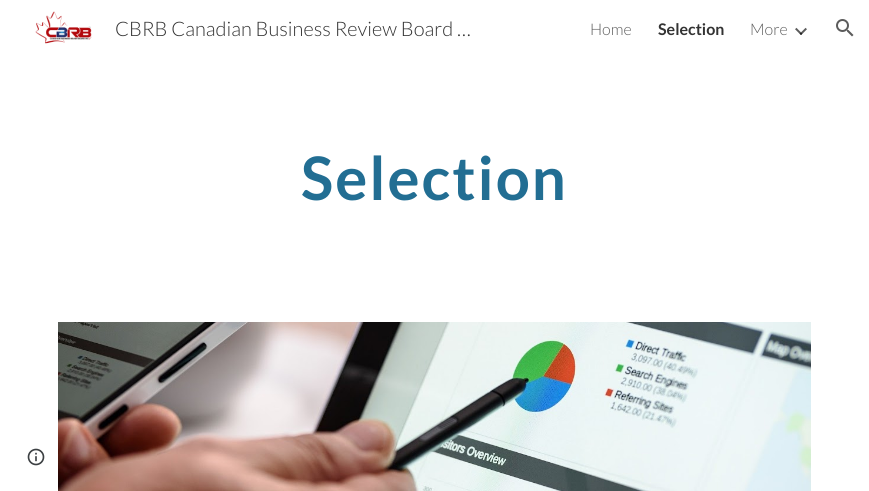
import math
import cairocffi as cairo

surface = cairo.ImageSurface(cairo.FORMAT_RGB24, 869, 491)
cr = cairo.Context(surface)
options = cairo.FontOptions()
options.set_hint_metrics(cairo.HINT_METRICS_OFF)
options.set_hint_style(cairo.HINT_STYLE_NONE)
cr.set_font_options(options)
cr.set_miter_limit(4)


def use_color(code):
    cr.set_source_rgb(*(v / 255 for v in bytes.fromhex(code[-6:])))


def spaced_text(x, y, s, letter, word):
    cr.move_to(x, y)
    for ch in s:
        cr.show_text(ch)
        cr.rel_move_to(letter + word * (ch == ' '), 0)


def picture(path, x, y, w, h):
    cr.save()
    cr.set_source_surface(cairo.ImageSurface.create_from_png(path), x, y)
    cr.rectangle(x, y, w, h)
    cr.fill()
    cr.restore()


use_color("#ffffff")
cr.paint()
picture("img1.png", 35, 11, 57, 33)
cr.select_font_face("Lato Light")
cr.set_font_size(20)
use_color("#333333")
cr.move_to(115, 36)
cr.show_text("CBRB Canadian Business Review Board …")
cr.set_font_size(16)
use_color("#5c5c5c")
cr.move_to(590, 35)
cr.show_text("Home")
cr.select_font_face("Lato", cairo.FONT_SLANT_NORMAL, cairo.FONT_WEIGHT_BOLD)
use_color("#333333")
cr.move_to(658, 35)
cr.show_text("Selection")
cr.select_font_face("Lato Light")
use_color("#5c5c5c")
cr.move_to(750, 35)
cr.show_text("More")
picture("img2.png", 795, 27, 12, 8)
picture("img3.png", 836, 19, 18, 18)
cr.select_font_face("Lato", cairo.FONT_SLANT_NORMAL, cairo.FONT_WEIGHT_BOLD)
cr.set_font_size(60)
use_color("#226e93")
spaced_text(301, 200, "Selection", 2, 0)
picture("img4.png", 58, 322, 753, 169)
picture("img5.png", 27, 448, 18, 18)
surface.write_to_png("result.png")
